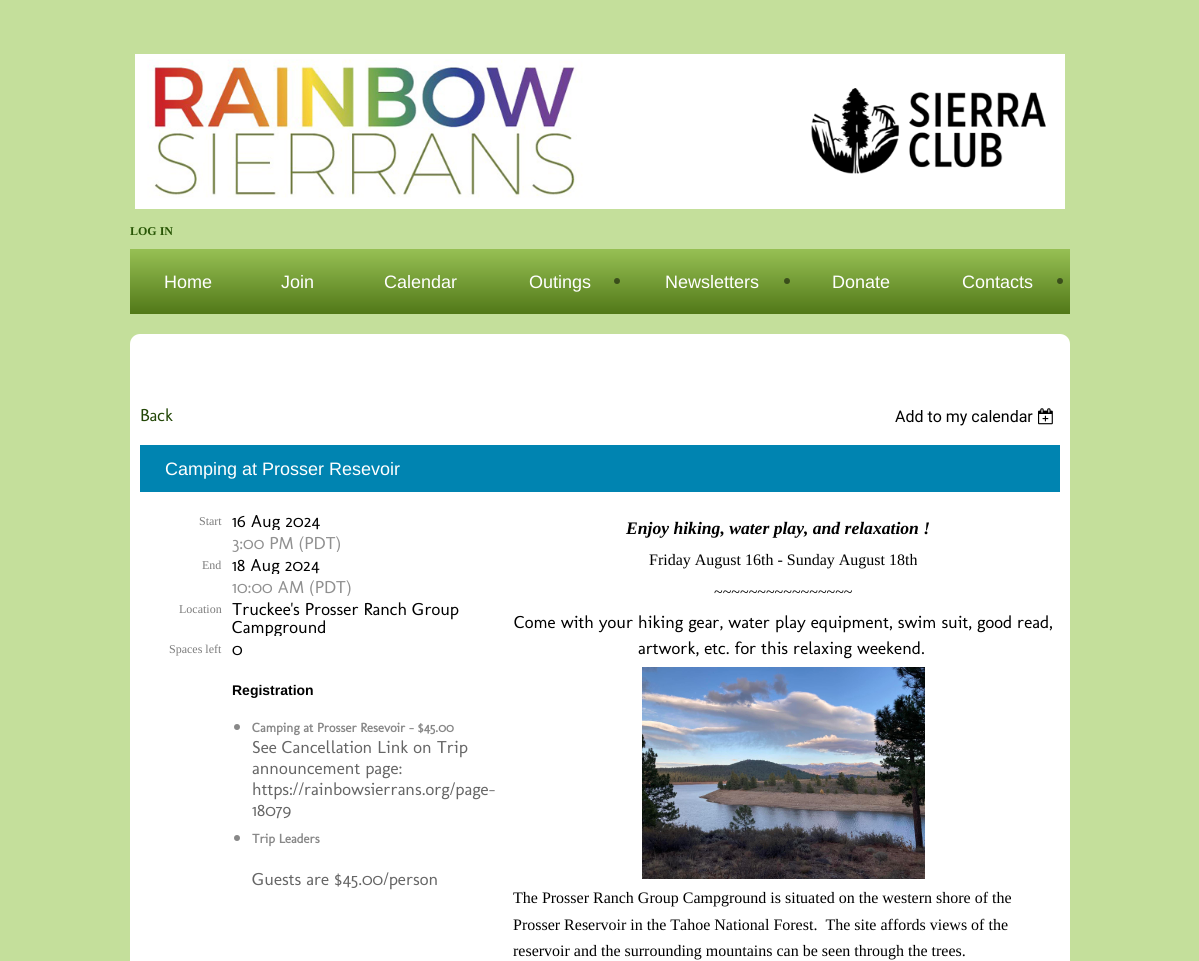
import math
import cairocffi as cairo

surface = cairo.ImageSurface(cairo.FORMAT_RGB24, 1199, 961)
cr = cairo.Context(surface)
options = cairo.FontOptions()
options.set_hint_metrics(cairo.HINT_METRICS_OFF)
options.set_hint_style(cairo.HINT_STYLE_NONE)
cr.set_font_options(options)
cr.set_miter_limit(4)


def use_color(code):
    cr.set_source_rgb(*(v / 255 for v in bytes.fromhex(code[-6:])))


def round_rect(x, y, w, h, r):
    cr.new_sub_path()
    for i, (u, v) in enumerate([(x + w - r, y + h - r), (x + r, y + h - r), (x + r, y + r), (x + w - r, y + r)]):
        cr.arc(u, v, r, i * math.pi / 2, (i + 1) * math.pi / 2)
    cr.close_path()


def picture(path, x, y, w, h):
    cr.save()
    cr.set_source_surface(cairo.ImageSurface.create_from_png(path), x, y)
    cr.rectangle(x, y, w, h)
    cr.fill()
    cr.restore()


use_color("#c4df9b")
cr.paint()
picture("img1.png", 135, 54, 930, 155)
cr.select_font_face("Liberation Serif", cairo.FONT_SLANT_NORMAL, cairo.FONT_WEIGHT_BOLD)
cr.set_font_size(12)
use_color("#285605")
cr.move_to(130, 235)
cr.show_text("LOG IN")
gradient = cairo.LinearGradient(189, 249, 189, 314)
gradient.add_color_stop_rgba(0, 0.592, 0.753, 0.329, 1)
gradient.add_color_stop_rgba(1, 0.318, 0.471, 0.094, 1)
cr.set_source(gradient)
cr.rectangle(130, 249, 117, 65)
cr.fill()
cr.select_font_face("Liberation Sans")
cr.set_font_size(18)
use_color("#ffffff")
cr.move_to(164, 288)
cr.show_text("Home")
gradient = cairo.LinearGradient(298, 249, 298, 314)
gradient.add_color_stop_rgba(0, 0.592, 0.753, 0.329, 1)
gradient.add_color_stop_rgba(1, 0.318, 0.471, 0.094, 1)
cr.set_source(gradient)
cr.rectangle(247, 249, 101, 65)
cr.fill()
use_color("#ffffff")
cr.move_to(281, 288)
cr.show_text("Join")
gradient = cairo.LinearGradient(421, 249, 421, 314)
gradient.add_color_stop_rgba(0, 0.592, 0.753, 0.329, 1)
gradient.add_color_stop_rgba(1, 0.318, 0.471, 0.094, 1)
cr.set_source(gradient)
cr.rectangle(348, 249, 146, 65)
cr.fill()
use_color("#ffffff")
cr.move_to(384, 288)
cr.show_text("Calendar")
gradient = cairo.LinearGradient(561, 249, 561, 314)
gradient.add_color_stop_rgba(0, 0.592, 0.753, 0.329, 1)
gradient.add_color_stop_rgba(1, 0.318, 0.471, 0.094, 1)
cr.set_source(gradient)
cr.rectangle(494, 249, 133, 65)
cr.fill()
use_color("#ffffff")
cr.move_to(529, 288)
cr.show_text("Outings")
cr.set_source_rgba(0, 0, 0, 0.5)
cr.new_path()
cr.arc(617, 281, 3, 0, 2 * math.pi)
cr.fill()
gradient = cairo.LinearGradient(712, 249, 712, 314)
gradient.add_color_stop_rgba(0, 0.592, 0.753, 0.329, 1)
gradient.add_color_stop_rgba(1, 0.318, 0.471, 0.094, 1)
cr.set_source(gradient)
cr.rectangle(627, 249, 170, 65)
cr.fill()
use_color("#ffffff")
cr.move_to(665, 288)
cr.show_text("Newsletters")
cr.set_source_rgba(0, 0, 0, 0.5)
cr.new_path()
cr.arc(787, 281, 3, 0, 2 * math.pi)
cr.fill()
gradient = cairo.LinearGradient(862, 249, 862, 314)
gradient.add_color_stop_rgba(0, 0.592, 0.753, 0.329, 1)
gradient.add_color_stop_rgba(1, 0.318, 0.471, 0.094, 1)
cr.set_source(gradient)
cr.rectangle(797, 249, 129, 65)
cr.fill()
use_color("#ffffff")
cr.move_to(832, 288)
cr.show_text("Donate")
gradient = cairo.LinearGradient(998, 249, 998, 314)
gradient.add_color_stop_rgba(0, 0.592, 0.753, 0.329, 1)
gradient.add_color_stop_rgba(1, 0.318, 0.471, 0.094, 1)
cr.set_source(gradient)
cr.rectangle(926, 249, 144, 65)
cr.fill()
use_color("#ffffff")
cr.move_to(962, 288)
cr.show_text("Contacts")
cr.set_source_rgba(0, 0, 0, 0.5)
cr.new_path()
cr.arc(1060, 281, 3, 0, 2 * math.pi)
cr.fill()
use_color("#ffffff")
round_rect(130, 334, 940, 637, 10)
cr.fill()
cr.select_font_face("Molengo")
cr.set_font_size(17.6)
use_color("#234707")
cr.move_to(140, 421)
cr.show_text("Back")
cr.select_font_face("Roboto")
cr.set_font_size(16)
use_color("#000000")
cr.move_to(895, 422)
cr.show_text("Add to my calendar")
picture("img2.png", 1038, 408, 15, 17)
use_color("#0084b1")
cr.rectangle(140, 445, 920, 47)
cr.fill()
cr.select_font_face("Liberation Sans")
cr.set_font_size(18)
use_color("#ffffff")
cr.move_to(165, 475)
cr.show_text("Camping at Prosser Resevoir")
cr.select_font_face("Liberation Serif")
cr.set_font_size(12)
use_color("#7c7c7c")
cr.move_to(199, 525)
cr.show_text("Start")
cr.save()
cr.rectangle(232, 512, 236, 18)
cr.clip()
cr.select_font_face("Molengo")
cr.set_font_size(17.6)
use_color("#000000")
cr.move_to(232, 527)
cr.show_text("16 Aug 2024")
cr.restore()
cr.save()
cr.rectangle(232, 534, 236, 18)
cr.clip()
cr.select_font_face("Molengo")
cr.set_font_size(17.6)
use_color("#909090")
cr.move_to(232, 549)
cr.show_text("3:00 PM (PDT)")
cr.restore()
cr.move_to(202, 569)
cr.show_text("End")
cr.save()
cr.rectangle(232, 556, 236, 18)
cr.clip()
cr.select_font_face("Molengo")
cr.set_font_size(17.6)
use_color("#000000")
cr.move_to(232, 571)
cr.show_text("18 Aug 2024")
cr.restore()
cr.save()
cr.rectangle(232, 578, 236, 18)
cr.clip()
cr.select_font_face("Molengo")
cr.set_font_size(17.6)
use_color("#909090")
cr.move_to(232, 593)
cr.show_text("10:00 AM (PDT)")
cr.restore()
cr.move_to(179, 613)
cr.show_text("Location")
cr.select_font_face("Molengo")
cr.set_font_size(17.6)
use_color("#000000")
cr.move_to(232, 615)
cr.show_text("Truckee's Prosser Ranch Group")
cr.save()
cr.rectangle(232, 600, 236, 36)
cr.clip()
cr.move_to(232, 633)
cr.show_text("Campground")
cr.restore()
cr.select_font_face("Liberation Serif")
cr.set_font_size(12)
use_color("#7c7c7c")
cr.move_to(169, 653)
cr.show_text("Spaces left")
cr.select_font_face("Molengo")
cr.set_font_size(17.6)
use_color("#000000")
cr.move_to(232, 655)
cr.show_text("0")
cr.select_font_face("Liberation Sans", cairo.FONT_SLANT_NORMAL, cairo.FONT_WEIGHT_BOLD)
cr.set_font_size(14)
cr.move_to(232, 695)
cr.show_text("Registration")
use_color("#888888")
cr.new_path()
cr.arc(237, 727, 3, 0, 2 * math.pi)
cr.fill()
cr.select_font_face("Molengo", cairo.FONT_SLANT_NORMAL, cairo.FONT_WEIGHT_BOLD)
cr.set_font_size(13)
cr.move_to(252, 732)
cr.show_text("Camping at Prosser Resevoir – $45.00")
cr.select_font_face("Molengo")
cr.set_font_size(17.6)
use_color("#666666")
cr.move_to(252, 753)
cr.show_text("See Cancellation Link on Trip")
cr.move_to(252, 774)
cr.show_text("announcement page:")
cr.move_to(252, 795)
cr.show_text("https://rainbowsierrans.org/page-")
cr.move_to(252, 816)
cr.show_text("18079")
use_color("#888888")
cr.new_path()
cr.arc(237, 838, 3, 0, 2 * math.pi)
cr.fill()
cr.select_font_face("Molengo", cairo.FONT_SLANT_NORMAL, cairo.FONT_WEIGHT_BOLD)
cr.set_font_size(13)
cr.move_to(252, 843)
cr.show_text("Trip Leaders")
cr.select_font_face("Molengo")
cr.set_font_size(17.6)
use_color("#666666")
cr.move_to(252, 885)
cr.show_text("Guests are $45.00/person")
cr.select_font_face("Liberation Serif", cairo.FONT_SLANT_ITALIC, cairo.FONT_WEIGHT_BOLD)
use_color("#000000")
cr.move_to(626, 534)
cr.show_text("Enjoy hiking, water play, and relaxation !")
cr.select_font_face("Liberation Serif")
cr.set_font_size(16)
cr.move_to(649, 565)
cr.show_text("Friday August 16th - Sunday August 18th")
cr.move_to(714, 597)
cr.show_text("~~~~~~~~~~~~~~~~")
cr.select_font_face("Molengo")
cr.set_font_size(17.6)
cr.move_to(514, 628)
cr.show_text("Come with your hiking gear, water play equipment, swim suit, good read,")
cr.move_to(638, 654)
cr.show_text("artwork, etc. for this relaxing weekend.")
picture("img3.png", 642, 667, 283, 212)
cr.select_font_face("Liberation Serif")
cr.set_font_size(16)
cr.move_to(513, 903)
cr.show_text("The Prosser Ranch Group Campground is situated on the western shore of the")
cr.move_to(513, 930)
cr.show_text("Prosser Reservoir in the Tahoe National Forest.  The site affords views of the")
cr.move_to(513, 956)
cr.show_text("reservoir and the surrounding mountains can be seen through the trees.")
surface.write_to_png("result.png")
